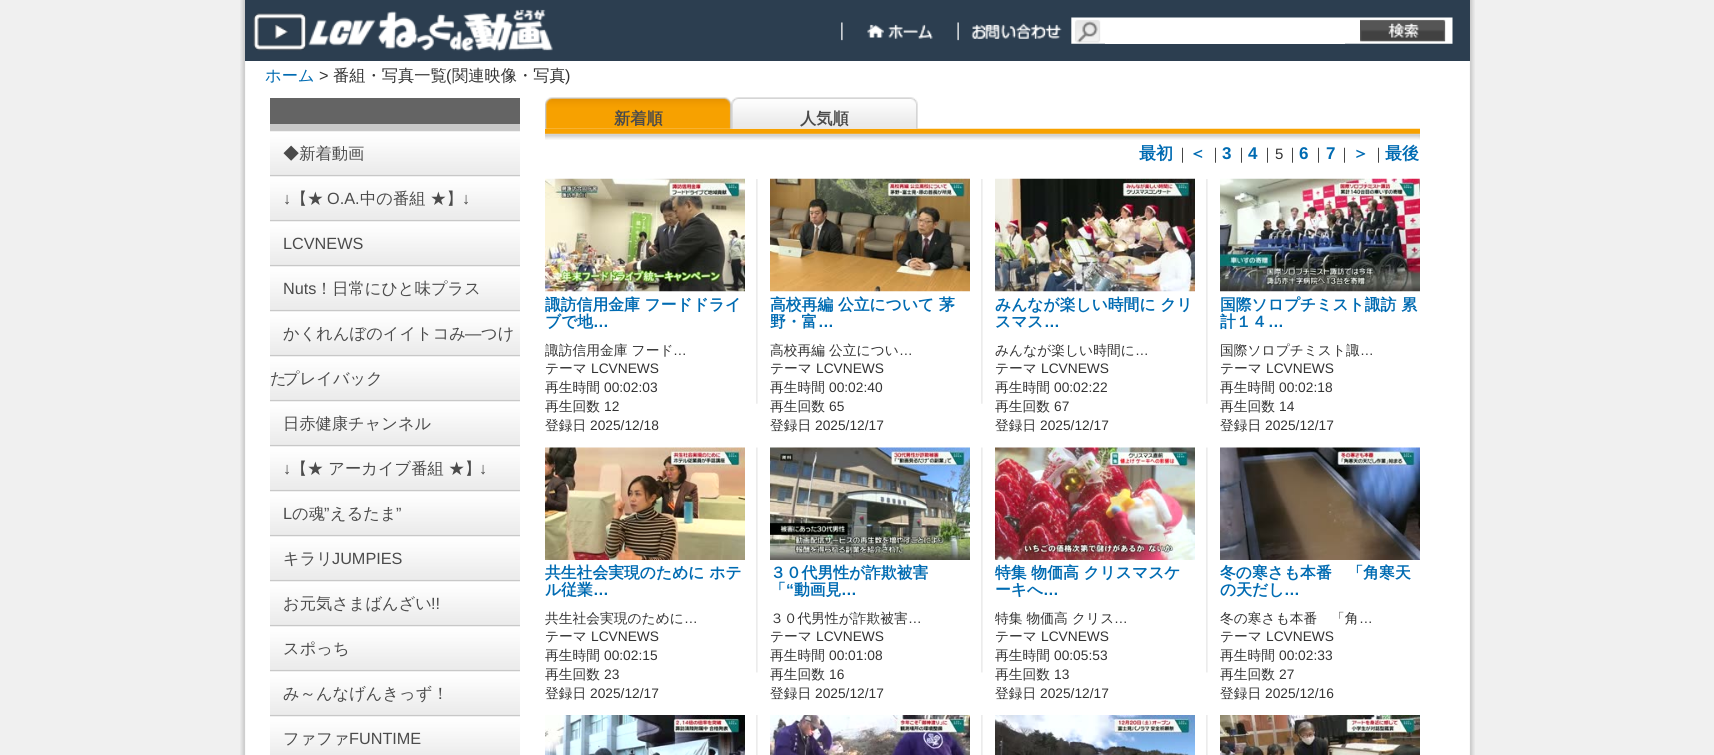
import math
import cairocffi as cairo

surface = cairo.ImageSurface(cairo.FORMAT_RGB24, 1714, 755)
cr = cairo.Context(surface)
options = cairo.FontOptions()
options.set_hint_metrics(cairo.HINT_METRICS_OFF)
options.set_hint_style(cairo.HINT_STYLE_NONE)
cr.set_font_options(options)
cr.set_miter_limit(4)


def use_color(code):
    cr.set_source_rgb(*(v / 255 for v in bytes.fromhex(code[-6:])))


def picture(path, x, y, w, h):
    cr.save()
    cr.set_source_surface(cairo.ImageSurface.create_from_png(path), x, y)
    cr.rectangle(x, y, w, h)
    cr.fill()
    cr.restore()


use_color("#f0f0f0")
cr.paint()
picture("img1.png", 240, 0, 1235, 755)
use_color("#2c3e50")
cr.rectangle(245, 0, 1225, 61)
cr.fill()
picture("img2.png", 253, 9, 1200, 43)
picture("img3.png", 841, 22, 92, 19)
picture("img4.png", 957, 22, 105, 19)
picture("img5.png", 1360, 19, 86, 23)
use_color("#ffffff")
cr.rectangle(1105, 43, 240, 1)
cr.fill()
cr.select_font_face("WenQuanYi Zen Hei Medium")
cr.set_font_size(16.25)
use_color("#006bb2")
cr.move_to(265, 81)
cr.show_text("ホーム")
cr.select_font_face("Liberation Sans")
use_color("#333333")
cr.move_to(319, 81)
cr.show_text(">")
cr.select_font_face("WenQuanYi Zen Hei Medium")
cr.move_to(333, 81)
cr.show_text("番組・写真一覧")
cr.select_font_face("Liberation Sans")
cr.move_to(446, 81)
cr.show_text("(")
cr.select_font_face("WenQuanYi Zen Hei Medium")
cr.move_to(452, 81)
cr.show_text("関連映像・写真")
cr.select_font_face("Liberation Sans")
cr.move_to(565, 81)
cr.show_text(")")
use_color("#c8c8c8")
cr.rectangle(270, 124, 250, 593)
cr.fill()
use_color("#646464")
cr.rectangle(270, 98, 250, 26)
cr.fill()
picture("img6.png", 270, 131, 250, 44)
cr.select_font_face("WenQuanYi Zen Hei Medium")
use_color("#4b4b4b")
cr.move_to(283, 159)
cr.show_text("◆新着動画")
picture("img6.png", 270, 176, 250, 44)
cr.select_font_face("Liberation Sans")
cr.move_to(283, 204)
cr.show_text("↓")
cr.select_font_face("WenQuanYi Zen Hei Medium")
cr.move_to(291, 204)
cr.show_text("【★")
cr.select_font_face("Liberation Sans")
cr.move_to(327, 204)
cr.show_text("O.A.")
cr.select_font_face("WenQuanYi Zen Hei Medium")
cr.move_to(360, 204)
cr.show_text("中の番組 ★】")
cr.select_font_face("Liberation Sans")
cr.move_to(462, 204)
cr.show_text("↓")
picture("img6.png", 270, 221, 250, 44)
cr.move_to(283, 249)
cr.show_text("LCVNEWS")
picture("img6.png", 270, 266, 250, 44)
cr.move_to(283, 294)
cr.show_text("Nuts")
cr.select_font_face("WenQuanYi Zen Hei Medium")
cr.move_to(316, 294)
cr.show_text("！日常にひと味プラス")
picture("img6.png", 270, 311, 250, 44)
cr.move_to(283, 339)
cr.show_text("かくれんぼのイイトコみ")
cr.select_font_face("Liberation Sans")
cr.move_to(465, 339)
cr.show_text("―")
cr.select_font_face("WenQuanYi Zen Hei Medium")
cr.move_to(481, 339)
cr.show_text("つけ")
picture("img6.png", 270, 356, 250, 44)
cr.move_to(270, 384)
cr.show_text("た")
cr.move_to(283, 384)
cr.show_text("プレイバック")
picture("img6.png", 270, 401, 250, 44)
cr.move_to(283, 429)
cr.show_text("日赤健康チャンネル")
picture("img6.png", 270, 446, 250, 44)
cr.select_font_face("Liberation Sans")
cr.move_to(283, 474)
cr.show_text("↓")
cr.select_font_face("WenQuanYi Zen Hei Medium")
cr.move_to(291, 474)
cr.show_text("【★ アーカイブ番組 ★】")
cr.select_font_face("Liberation Sans")
cr.move_to(479, 474)
cr.show_text("↓")
picture("img6.png", 270, 491, 250, 44)
cr.move_to(283, 519)
cr.show_text("L")
cr.select_font_face("WenQuanYi Zen Hei Medium")
cr.move_to(292, 519)
cr.show_text("の魂")
cr.select_font_face("Liberation Sans")
cr.move_to(324, 519)
cr.show_text("”")
cr.select_font_face("WenQuanYi Zen Hei Medium")
cr.move_to(330, 519)
cr.show_text("えるたま")
cr.select_font_face("Liberation Sans")
cr.move_to(396, 519)
cr.show_text("”")
picture("img6.png", 270, 536, 250, 44)
cr.select_font_face("WenQuanYi Zen Hei Medium")
cr.move_to(283, 564)
cr.show_text("キラリ")
cr.select_font_face("Liberation Sans")
cr.move_to(332, 564)
cr.show_text("JUMPIES")
picture("img6.png", 270, 581, 250, 44)
cr.select_font_face("WenQuanYi Zen Hei Medium")
cr.move_to(283, 609)
cr.show_text("お元気さまばんざい")
cr.select_font_face("Liberation Sans")
cr.move_to(431, 609)
cr.show_text("!!")
picture("img6.png", 270, 626, 250, 44)
cr.select_font_face("WenQuanYi Zen Hei Medium")
cr.move_to(283, 654)
cr.show_text("スポっち")
picture("img6.png", 270, 671, 250, 44)
cr.move_to(283, 699)
cr.show_text("み～んなげんきっず！")
picture("img7.png", 270, 716, 250, 39)
cr.move_to(283, 744)
cr.show_text("ファファ")
cr.select_font_face("Liberation Sans")
cr.move_to(349, 744)
cr.show_text("FUNTIME")
picture("img10.png", 545, 128, 875, 12)
picture("img8.png", 545, 97, 187, 32)
cr.select_font_face("WenQuanYi Zen Hei", cairo.FONT_SLANT_NORMAL, cairo.FONT_WEIGHT_BOLD)
cr.move_to(614, 124)
cr.show_text("新着順")
picture("img9.png", 731, 97, 187, 32)
cr.move_to(800, 124)
cr.show_text("人気順")
cr.set_font_size(17)
use_color("#006bb2")
cr.move_to(1139, 159)
cr.show_text("最初")
cr.select_font_face("WenQuanYi Zen Hei Medium")
cr.set_font_size(15)
use_color("#333333")
cr.move_to(1175, 159)
cr.show_text("｜")
cr.select_font_face("WenQuanYi Zen Hei", cairo.FONT_SLANT_NORMAL, cairo.FONT_WEIGHT_BOLD)
cr.set_font_size(17)
use_color("#006bb2")
cr.move_to(1189, 159)
cr.show_text("＜")
cr.select_font_face("WenQuanYi Zen Hei Medium")
cr.set_font_size(15)
use_color("#333333")
cr.move_to(1208, 159)
cr.show_text("｜")
cr.select_font_face("Liberation Sans", cairo.FONT_SLANT_NORMAL, cairo.FONT_WEIGHT_BOLD)
cr.set_font_size(17)
use_color("#006bb2")
cr.move_to(1222, 159)
cr.show_text("3")
cr.select_font_face("WenQuanYi Zen Hei Medium")
cr.set_font_size(15)
use_color("#333333")
cr.move_to(1234, 159)
cr.show_text("｜")
cr.select_font_face("Liberation Sans", cairo.FONT_SLANT_NORMAL, cairo.FONT_WEIGHT_BOLD)
cr.set_font_size(17)
use_color("#006bb2")
cr.move_to(1248, 159)
cr.show_text("4")
cr.select_font_face("WenQuanYi Zen Hei Medium")
cr.set_font_size(15)
use_color("#333333")
cr.move_to(1260, 159)
cr.show_text("｜")
cr.select_font_face("Liberation Sans")
cr.move_to(1275, 159)
cr.show_text("5")
cr.select_font_face("WenQuanYi Zen Hei Medium")
cr.move_to(1285, 159)
cr.show_text("｜")
cr.select_font_face("Liberation Sans", cairo.FONT_SLANT_NORMAL, cairo.FONT_WEIGHT_BOLD)
cr.set_font_size(17)
use_color("#006bb2")
cr.move_to(1299, 159)
cr.show_text("6")
cr.select_font_face("WenQuanYi Zen Hei Medium")
cr.set_font_size(15)
use_color("#333333")
cr.move_to(1311, 159)
cr.show_text("｜")
cr.select_font_face("Liberation Sans", cairo.FONT_SLANT_NORMAL, cairo.FONT_WEIGHT_BOLD)
cr.set_font_size(17)
use_color("#006bb2")
cr.move_to(1326, 159)
cr.show_text("7")
cr.select_font_face("WenQuanYi Zen Hei Medium")
cr.set_font_size(15)
use_color("#333333")
cr.move_to(1337, 159)
cr.show_text("｜")
cr.select_font_face("WenQuanYi Zen Hei", cairo.FONT_SLANT_NORMAL, cairo.FONT_WEIGHT_BOLD)
cr.set_font_size(17)
use_color("#006bb2")
cr.move_to(1352, 159)
cr.show_text("＞")
cr.select_font_face("WenQuanYi Zen Hei Medium")
cr.set_font_size(15)
use_color("#333333")
cr.move_to(1371, 159)
cr.show_text("｜")
cr.select_font_face("WenQuanYi Zen Hei", cairo.FONT_SLANT_NORMAL, cairo.FONT_WEIGHT_BOLD)
cr.set_font_size(17)
use_color("#006bb2")
cr.move_to(1385, 159)
cr.show_text("最後")
picture("img11.png", 545, 178, 200, 114)
cr.set_font_size(15.8)
cr.move_to(545, 310)
cr.show_text("諏訪信用金庫 フードドライ")
cr.move_to(545, 327)
cr.show_text("ブで地")
cr.select_font_face("Liberation Sans", cairo.FONT_SLANT_NORMAL, cairo.FONT_WEIGHT_BOLD)
cr.move_to(593, 327)
cr.show_text("…")
cr.select_font_face("WenQuanYi Zen Hei Medium")
cr.set_font_size(13.75)
use_color("#333333")
cr.move_to(545, 355)
cr.show_text("諏訪信用金庫 フード")
cr.select_font_face("Liberation Sans")
cr.move_to(673, 355)
cr.show_text("…")
cr.select_font_face("WenQuanYi Zen Hei Medium")
cr.move_to(545, 373)
cr.show_text("テーマ")
cr.select_font_face("Liberation Sans")
cr.move_to(591, 373)
cr.show_text("LCVNEWS")
cr.select_font_face("WenQuanYi Zen Hei Medium")
cr.move_to(545, 392)
cr.show_text("再生時間")
cr.select_font_face("Liberation Sans")
cr.move_to(604, 392)
cr.show_text("00:02:03")
cr.select_font_face("WenQuanYi Zen Hei Medium")
cr.move_to(545, 411)
cr.show_text("再生回数")
cr.select_font_face("Liberation Sans")
cr.move_to(604, 411)
cr.show_text("12")
cr.select_font_face("WenQuanYi Zen Hei Medium")
cr.move_to(545, 430)
cr.show_text("登録日")
cr.select_font_face("Liberation Sans")
cr.move_to(590, 430)
cr.show_text("2025/12/18")
picture("img12.png", 756, 179, 2, 225)
picture("img13.png", 770, 178, 200, 114)
cr.select_font_face("WenQuanYi Zen Hei", cairo.FONT_SLANT_NORMAL, cairo.FONT_WEIGHT_BOLD)
cr.set_font_size(15.8)
use_color("#006bb2")
cr.move_to(770, 310)
cr.show_text("高校再編 公立について 茅")
cr.move_to(770, 327)
cr.show_text("野・富")
cr.select_font_face("Liberation Sans", cairo.FONT_SLANT_NORMAL, cairo.FONT_WEIGHT_BOLD)
cr.move_to(818, 327)
cr.show_text("…")
cr.select_font_face("WenQuanYi Zen Hei Medium")
cr.set_font_size(13.75)
use_color("#333333")
cr.move_to(770, 355)
cr.show_text("高校再編 公立につい")
cr.select_font_face("Liberation Sans")
cr.move_to(899, 355)
cr.show_text("…")
cr.select_font_face("WenQuanYi Zen Hei Medium")
cr.move_to(770, 373)
cr.show_text("テーマ")
cr.select_font_face("Liberation Sans")
cr.move_to(816, 373)
cr.show_text("LCVNEWS")
cr.select_font_face("WenQuanYi Zen Hei Medium")
cr.move_to(770, 392)
cr.show_text("再生時間")
cr.select_font_face("Liberation Sans")
cr.move_to(829, 392)
cr.show_text("00:02:40")
cr.select_font_face("WenQuanYi Zen Hei Medium")
cr.move_to(770, 411)
cr.show_text("再生回数")
cr.select_font_face("Liberation Sans")
cr.move_to(829, 411)
cr.show_text("65")
cr.select_font_face("WenQuanYi Zen Hei Medium")
cr.move_to(770, 430)
cr.show_text("登録日")
cr.select_font_face("Liberation Sans")
cr.move_to(815, 430)
cr.show_text("2025/12/17")
picture("img12.png", 981, 179, 2, 225)
picture("img14.png", 995, 178, 200, 114)
cr.select_font_face("WenQuanYi Zen Hei", cairo.FONT_SLANT_NORMAL, cairo.FONT_WEIGHT_BOLD)
cr.set_font_size(15.8)
use_color("#006bb2")
cr.move_to(995, 310)
cr.show_text("みんなが楽しい時間に クリ")
cr.move_to(995, 327)
cr.show_text("スマス")
cr.select_font_face("Liberation Sans", cairo.FONT_SLANT_NORMAL, cairo.FONT_WEIGHT_BOLD)
cr.move_to(1044, 327)
cr.show_text("…")
cr.select_font_face("WenQuanYi Zen Hei Medium")
cr.set_font_size(13.75)
use_color("#333333")
cr.move_to(995, 355)
cr.show_text("みんなが楽しい時間に")
cr.select_font_face("Liberation Sans")
cr.move_to(1135, 355)
cr.show_text("…")
cr.select_font_face("WenQuanYi Zen Hei Medium")
cr.move_to(995, 373)
cr.show_text("テーマ")
cr.select_font_face("Liberation Sans")
cr.move_to(1041, 373)
cr.show_text("LCVNEWS")
cr.select_font_face("WenQuanYi Zen Hei Medium")
cr.move_to(995, 392)
cr.show_text("再生時間")
cr.select_font_face("Liberation Sans")
cr.move_to(1054, 392)
cr.show_text("00:02:22")
cr.select_font_face("WenQuanYi Zen Hei Medium")
cr.move_to(995, 411)
cr.show_text("再生回数")
cr.select_font_face("Liberation Sans")
cr.move_to(1054, 411)
cr.show_text("67")
cr.select_font_face("WenQuanYi Zen Hei Medium")
cr.move_to(995, 430)
cr.show_text("登録日")
cr.select_font_face("Liberation Sans")
cr.move_to(1040, 430)
cr.show_text("2025/12/17")
picture("img12.png", 1206, 179, 2, 225)
picture("img15.png", 1220, 178, 200, 114)
cr.select_font_face("WenQuanYi Zen Hei", cairo.FONT_SLANT_NORMAL, cairo.FONT_WEIGHT_BOLD)
cr.set_font_size(15.8)
use_color("#006bb2")
cr.move_to(1220, 310)
cr.show_text("国際ソロプチミスト諏訪 累")
cr.move_to(1220, 327)
cr.show_text("計１４")
cr.select_font_face("Liberation Sans", cairo.FONT_SLANT_NORMAL, cairo.FONT_WEIGHT_BOLD)
cr.move_to(1268, 327)
cr.show_text("…")
cr.select_font_face("WenQuanYi Zen Hei Medium")
cr.set_font_size(13.75)
use_color("#333333")
cr.move_to(1220, 355)
cr.show_text("国際ソロプチミスト諏")
cr.select_font_face("Liberation Sans")
cr.move_to(1360, 355)
cr.show_text("…")
cr.select_font_face("WenQuanYi Zen Hei Medium")
cr.move_to(1220, 373)
cr.show_text("テーマ")
cr.select_font_face("Liberation Sans")
cr.move_to(1266, 373)
cr.show_text("LCVNEWS")
cr.select_font_face("WenQuanYi Zen Hei Medium")
cr.move_to(1220, 392)
cr.show_text("再生時間")
cr.select_font_face("Liberation Sans")
cr.move_to(1279, 392)
cr.show_text("00:02:18")
cr.select_font_face("WenQuanYi Zen Hei Medium")
cr.move_to(1220, 411)
cr.show_text("再生回数")
cr.select_font_face("Liberation Sans")
cr.move_to(1279, 411)
cr.show_text("14")
cr.select_font_face("WenQuanYi Zen Hei Medium")
cr.move_to(1220, 430)
cr.show_text("登録日")
cr.select_font_face("Liberation Sans")
cr.move_to(1265, 430)
cr.show_text("2025/12/17")
picture("img16.png", 545, 447, 200, 113)
cr.select_font_face("WenQuanYi Zen Hei", cairo.FONT_SLANT_NORMAL, cairo.FONT_WEIGHT_BOLD)
cr.set_font_size(15.8)
use_color("#006bb2")
cr.move_to(545, 578)
cr.show_text("共生社会実現のために ホテ")
cr.move_to(545, 595)
cr.show_text("ル従業")
cr.select_font_face("Liberation Sans", cairo.FONT_SLANT_NORMAL, cairo.FONT_WEIGHT_BOLD)
cr.move_to(593, 595)
cr.show_text("…")
cr.select_font_face("WenQuanYi Zen Hei Medium")
cr.set_font_size(13.75)
use_color("#333333")
cr.move_to(545, 623)
cr.show_text("共生社会実現のために")
cr.select_font_face("Liberation Sans")
cr.move_to(684, 623)
cr.show_text("…")
cr.select_font_face("WenQuanYi Zen Hei Medium")
cr.move_to(545, 641)
cr.show_text("テーマ")
cr.select_font_face("Liberation Sans")
cr.move_to(591, 641)
cr.show_text("LCVNEWS")
cr.select_font_face("WenQuanYi Zen Hei Medium")
cr.move_to(545, 660)
cr.show_text("再生時間")
cr.select_font_face("Liberation Sans")
cr.move_to(604, 660)
cr.show_text("00:02:15")
cr.select_font_face("WenQuanYi Zen Hei Medium")
cr.move_to(545, 679)
cr.show_text("再生回数")
cr.select_font_face("Liberation Sans")
cr.move_to(604, 679)
cr.show_text("23")
cr.select_font_face("WenQuanYi Zen Hei Medium")
cr.move_to(545, 698)
cr.show_text("登録日")
cr.select_font_face("Liberation Sans")
cr.move_to(590, 698)
cr.show_text("2025/12/17")
picture("img17.png", 756, 447, 2, 226)
picture("img18.png", 770, 447, 200, 113)
cr.select_font_face("WenQuanYi Zen Hei", cairo.FONT_SLANT_NORMAL, cairo.FONT_WEIGHT_BOLD)
cr.set_font_size(15.8)
use_color("#006bb2")
cr.move_to(770, 578)
cr.show_text("３０代男性が詐欺被害")
cr.move_to(770, 595)
cr.show_text("「")
cr.select_font_face("Liberation Sans", cairo.FONT_SLANT_NORMAL, cairo.FONT_WEIGHT_BOLD)
cr.move_to(786, 595)
cr.show_text("“")
cr.select_font_face("WenQuanYi Zen Hei", cairo.FONT_SLANT_NORMAL, cairo.FONT_WEIGHT_BOLD)
cr.move_to(794, 595)
cr.show_text("動画見")
cr.select_font_face("Liberation Sans", cairo.FONT_SLANT_NORMAL, cairo.FONT_WEIGHT_BOLD)
cr.move_to(841, 595)
cr.show_text("…")
cr.select_font_face("WenQuanYi Zen Hei Medium")
cr.set_font_size(13.75)
use_color("#333333")
cr.move_to(770, 623)
cr.show_text("３０代男性が詐欺被害")
cr.select_font_face("Liberation Sans")
cr.move_to(908, 623)
cr.show_text("…")
cr.select_font_face("WenQuanYi Zen Hei Medium")
cr.move_to(770, 641)
cr.show_text("テーマ")
cr.select_font_face("Liberation Sans")
cr.move_to(816, 641)
cr.show_text("LCVNEWS")
cr.select_font_face("WenQuanYi Zen Hei Medium")
cr.move_to(770, 660)
cr.show_text("再生時間")
cr.select_font_face("Liberation Sans")
cr.move_to(829, 660)
cr.show_text("00:01:08")
cr.select_font_face("WenQuanYi Zen Hei Medium")
cr.move_to(770, 679)
cr.show_text("再生回数")
cr.select_font_face("Liberation Sans")
cr.move_to(829, 679)
cr.show_text("16")
cr.select_font_face("WenQuanYi Zen Hei Medium")
cr.move_to(770, 698)
cr.show_text("登録日")
cr.select_font_face("Liberation Sans")
cr.move_to(815, 698)
cr.show_text("2025/12/17")
picture("img17.png", 981, 447, 2, 226)
picture("img19.png", 995, 447, 200, 113)
cr.select_font_face("WenQuanYi Zen Hei", cairo.FONT_SLANT_NORMAL, cairo.FONT_WEIGHT_BOLD)
cr.set_font_size(15.8)
use_color("#006bb2")
cr.move_to(995, 578)
cr.show_text("特集 物価高 クリスマスケ")
cr.move_to(995, 595)
cr.show_text("ーキへ")
cr.select_font_face("Liberation Sans", cairo.FONT_SLANT_NORMAL, cairo.FONT_WEIGHT_BOLD)
cr.move_to(1043, 595)
cr.show_text("…")
cr.select_font_face("WenQuanYi Zen Hei Medium")
cr.set_font_size(13.75)
use_color("#333333")
cr.move_to(995, 623)
cr.show_text("特集 物価高 クリス")
cr.select_font_face("Liberation Sans")
cr.move_to(1114, 623)
cr.show_text("…")
cr.select_font_face("WenQuanYi Zen Hei Medium")
cr.move_to(995, 641)
cr.show_text("テーマ")
cr.select_font_face("Liberation Sans")
cr.move_to(1041, 641)
cr.show_text("LCVNEWS")
cr.select_font_face("WenQuanYi Zen Hei Medium")
cr.move_to(995, 660)
cr.show_text("再生時間")
cr.select_font_face("Liberation Sans")
cr.move_to(1054, 660)
cr.show_text("00:05:53")
cr.select_font_face("WenQuanYi Zen Hei Medium")
cr.move_to(995, 679)
cr.show_text("再生回数")
cr.select_font_face("Liberation Sans")
cr.move_to(1054, 679)
cr.show_text("13")
cr.select_font_face("WenQuanYi Zen Hei Medium")
cr.move_to(995, 698)
cr.show_text("登録日")
cr.select_font_face("Liberation Sans")
cr.move_to(1040, 698)
cr.show_text("2025/12/17")
picture("img17.png", 1206, 447, 2, 226)
picture("img20.png", 1220, 447, 200, 113)
cr.select_font_face("WenQuanYi Zen Hei", cairo.FONT_SLANT_NORMAL, cairo.FONT_WEIGHT_BOLD)
cr.set_font_size(15.8)
use_color("#006bb2")
cr.move_to(1220, 578)
cr.show_text("冬の寒さも本番　「角寒天")
cr.move_to(1220, 595)
cr.show_text("の天だし")
cr.select_font_face("Liberation Sans", cairo.FONT_SLANT_NORMAL, cairo.FONT_WEIGHT_BOLD)
cr.move_to(1284, 595)
cr.show_text("…")
cr.select_font_face("WenQuanYi Zen Hei Medium")
cr.set_font_size(13.75)
use_color("#333333")
cr.move_to(1220, 623)
cr.show_text("冬の寒さも本番　「角")
cr.select_font_face("Liberation Sans")
cr.move_to(1359, 623)
cr.show_text("…")
cr.select_font_face("WenQuanYi Zen Hei Medium")
cr.move_to(1220, 641)
cr.show_text("テーマ")
cr.select_font_face("Liberation Sans")
cr.move_to(1266, 641)
cr.show_text("LCVNEWS")
cr.select_font_face("WenQuanYi Zen Hei Medium")
cr.move_to(1220, 660)
cr.show_text("再生時間")
cr.select_font_face("Liberation Sans")
cr.move_to(1279, 660)
cr.show_text("00:02:33")
cr.select_font_face("WenQuanYi Zen Hei Medium")
cr.move_to(1220, 679)
cr.show_text("再生回数")
cr.select_font_face("Liberation Sans")
cr.move_to(1279, 679)
cr.show_text("27")
cr.select_font_face("WenQuanYi Zen Hei Medium")
cr.move_to(1220, 698)
cr.show_text("登録日")
cr.select_font_face("Liberation Sans")
cr.move_to(1265, 698)
cr.show_text("2025/12/16")
picture("img21.png", 545, 715, 200, 40)
picture("img22.png", 756, 715, 2, 40)
picture("img23.png", 770, 715, 200, 40)
picture("img22.png", 981, 715, 2, 40)
picture("img24.png", 995, 715, 200, 40)
picture("img22.png", 1206, 715, 2, 40)
picture("img25.png", 1220, 715, 200, 40)
surface.write_to_png("result.png")
